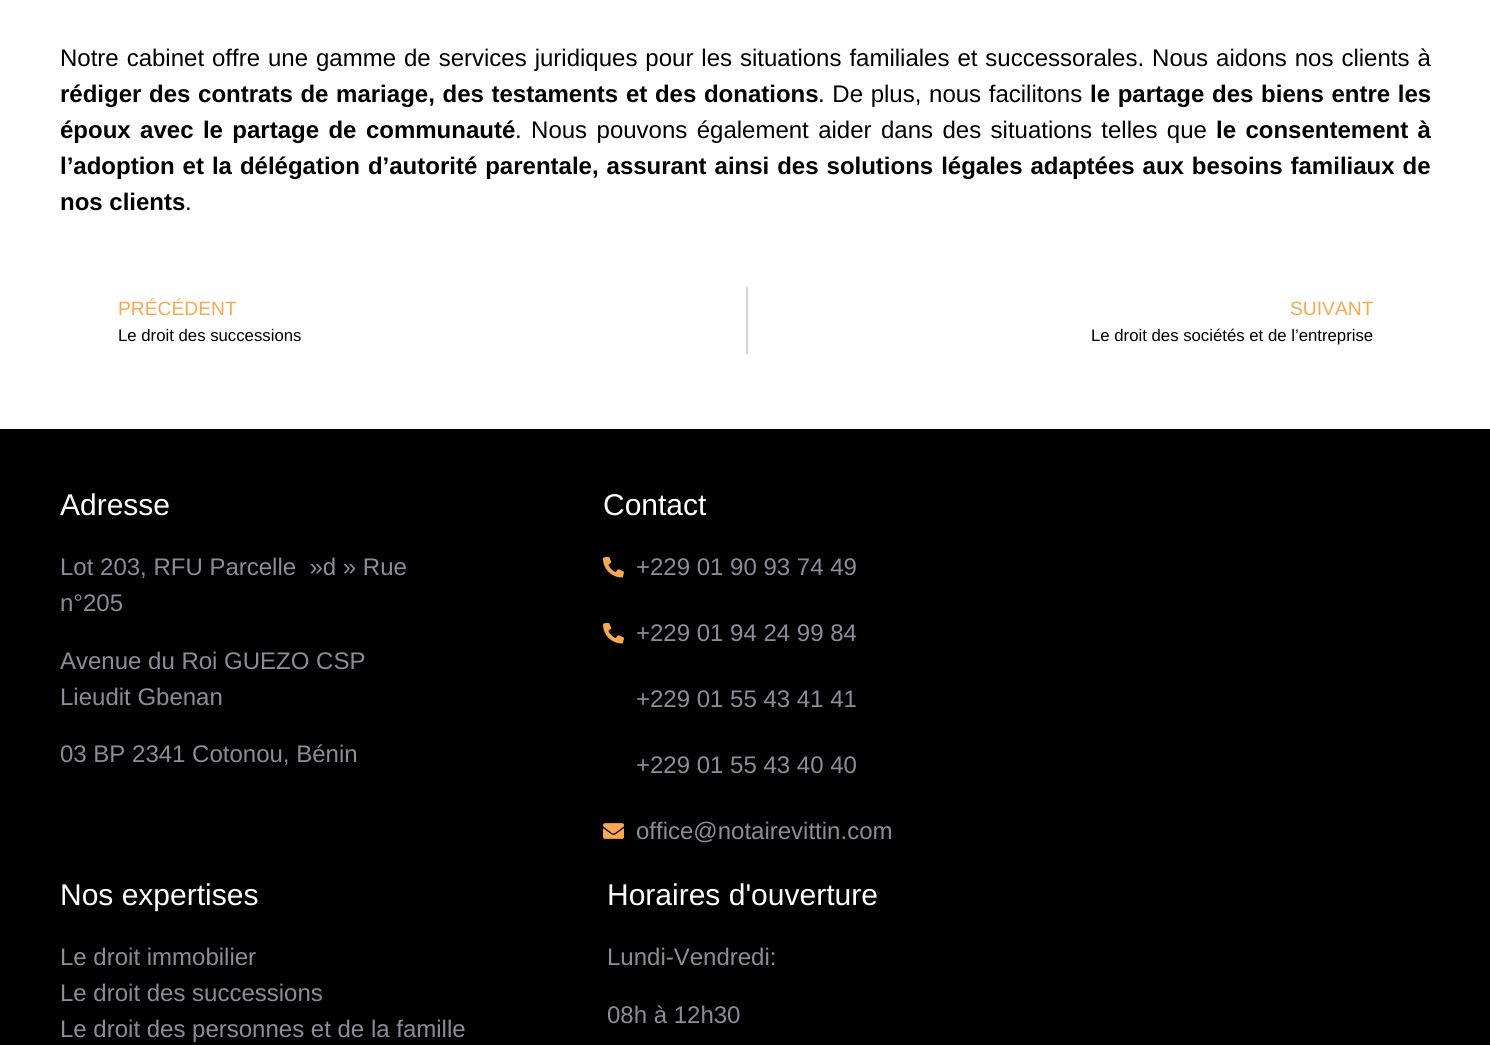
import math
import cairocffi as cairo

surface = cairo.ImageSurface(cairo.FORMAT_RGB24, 1490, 1045)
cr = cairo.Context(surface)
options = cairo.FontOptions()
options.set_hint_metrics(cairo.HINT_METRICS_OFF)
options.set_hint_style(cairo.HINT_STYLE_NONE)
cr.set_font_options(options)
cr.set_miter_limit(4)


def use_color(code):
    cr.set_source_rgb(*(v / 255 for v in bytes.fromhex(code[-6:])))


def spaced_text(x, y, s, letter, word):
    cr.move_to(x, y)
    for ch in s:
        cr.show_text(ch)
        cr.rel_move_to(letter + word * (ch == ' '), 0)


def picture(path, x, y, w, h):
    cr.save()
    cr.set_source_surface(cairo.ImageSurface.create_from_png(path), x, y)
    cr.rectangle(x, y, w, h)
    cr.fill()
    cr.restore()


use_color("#ffffff")
cr.paint()
cr.select_font_face("Liberation Sans")
cr.set_font_size(24)
use_color("#000000")
spaced_text(60, 66, "Notre cabinet offre une gamme de services juridiques pour les situations familiales et successorales. Nous aidons nos clients à", 0, 1.3)
cr.select_font_face("Liberation Sans", cairo.FONT_SLANT_NORMAL, cairo.FONT_WEIGHT_BOLD)
spaced_text(60, 102, "rédiger des contrats de mariage, des testaments et des donations", 0, 1)
cr.select_font_face("Liberation Sans")
spaced_text(818, 102, ". De plus, nous facilitons", 0, 1)
cr.select_font_face("Liberation Sans", cairo.FONT_SLANT_NORMAL, cairo.FONT_WEIGHT_BOLD)
spaced_text(1090, 102, "le partage des biens entre les", 0, 1)
spaced_text(60, 138, "époux avec le partage de communauté", 0, 2.75)
cr.select_font_face("Liberation Sans")
spaced_text(515, 138, ". Nous pouvons également aider dans des situations telles que", 0, 2.75)
cr.select_font_face("Liberation Sans", cairo.FONT_SLANT_NORMAL, cairo.FONT_WEIGHT_BOLD)
spaced_text(1216, 138, "le consentement à", 0, 2.75)
spaced_text(60, 174, "l’adoption et la délégation d’autorité parentale, assurant ainsi des solutions légales adaptées aux besoins familiaux de", 0, 1.3)
cr.move_to(60, 210)
cr.show_text("nos clients")
cr.select_font_face("Liberation Sans")
cr.move_to(185, 210)
cr.show_text(".")
cr.set_font_size(19.25)
use_color("#f9a94c")
cr.move_to(118, 315)
cr.show_text("PRÉCÉDENT")
cr.set_font_size(16.75)
use_color("#000000")
cr.move_to(118, 341)
cr.show_text("Le droit des successions")
use_color("#d4d4d4")
cr.rectangle(746, 287, 2, 67)
cr.fill()
cr.set_font_size(19.25)
use_color("#f9a94c")
cr.move_to(1290, 315)
cr.show_text("SUIVANT")
cr.set_font_size(16.75)
use_color("#000000")
cr.move_to(1091, 341)
cr.show_text("Le droit des sociétés et de l’entreprise")
cr.rectangle(0, 429, 1490, 616)
cr.fill()
cr.set_font_size(30)
use_color("#ffffff")
cr.move_to(60, 515)
cr.show_text("Adresse")
cr.set_font_size(24)
use_color("#8a8e94")
cr.move_to(60, 575)
cr.show_text("Lot 203, RFU Parcelle  »d » Rue")
cr.move_to(60, 611)
cr.show_text("n°205")
cr.move_to(60, 669)
cr.show_text("Avenue du Roi GUEZO CSP")
cr.move_to(60, 705)
cr.show_text("Lieudit Gbenan")
cr.move_to(60, 762)
cr.show_text("03 BP 2341 Cotonou, Bénin")
cr.set_font_size(30)
use_color("#ffffff")
cr.move_to(603, 515)
cr.show_text("Contact")
picture("img1.png", 603, 557, 21, 21)
cr.set_font_size(24)
use_color("#8a8e94")
cr.move_to(636, 575)
cr.show_text("+229 01 90 93 74 49")
picture("img1.png", 603, 623, 21, 21)
cr.move_to(636, 641)
cr.show_text("+229 01 94 24 99 84")
cr.move_to(636, 707)
cr.show_text("+229 01 55 43 41 41")
cr.move_to(636, 773)
cr.show_text("+229 01 55 43 40 40")
picture("img2.png", 603, 823, 21, 16)
cr.move_to(636, 839)
cr.show_text("office@notairevittin.com")
cr.set_font_size(30)
use_color("#ffffff")
cr.move_to(60, 905)
cr.show_text("Nos expertises")
cr.set_font_size(24)
use_color("#8a8e94")
cr.move_to(60, 965)
cr.show_text("Le droit immobilier")
cr.move_to(60, 1001)
cr.show_text("Le droit des successions")
cr.move_to(60, 1037)
cr.show_text("Le droit des personnes et de la famille")
cr.set_font_size(30)
use_color("#ffffff")
cr.move_to(607, 905)
cr.show_text("Horaires d'ouverture")
cr.set_font_size(24)
use_color("#8a8e94")
cr.move_to(607, 965)
cr.show_text("Lundi-Vendredi:")
cr.move_to(607, 1023)
cr.show_text("08h à 12h30")
surface.write_to_png("result.png")
